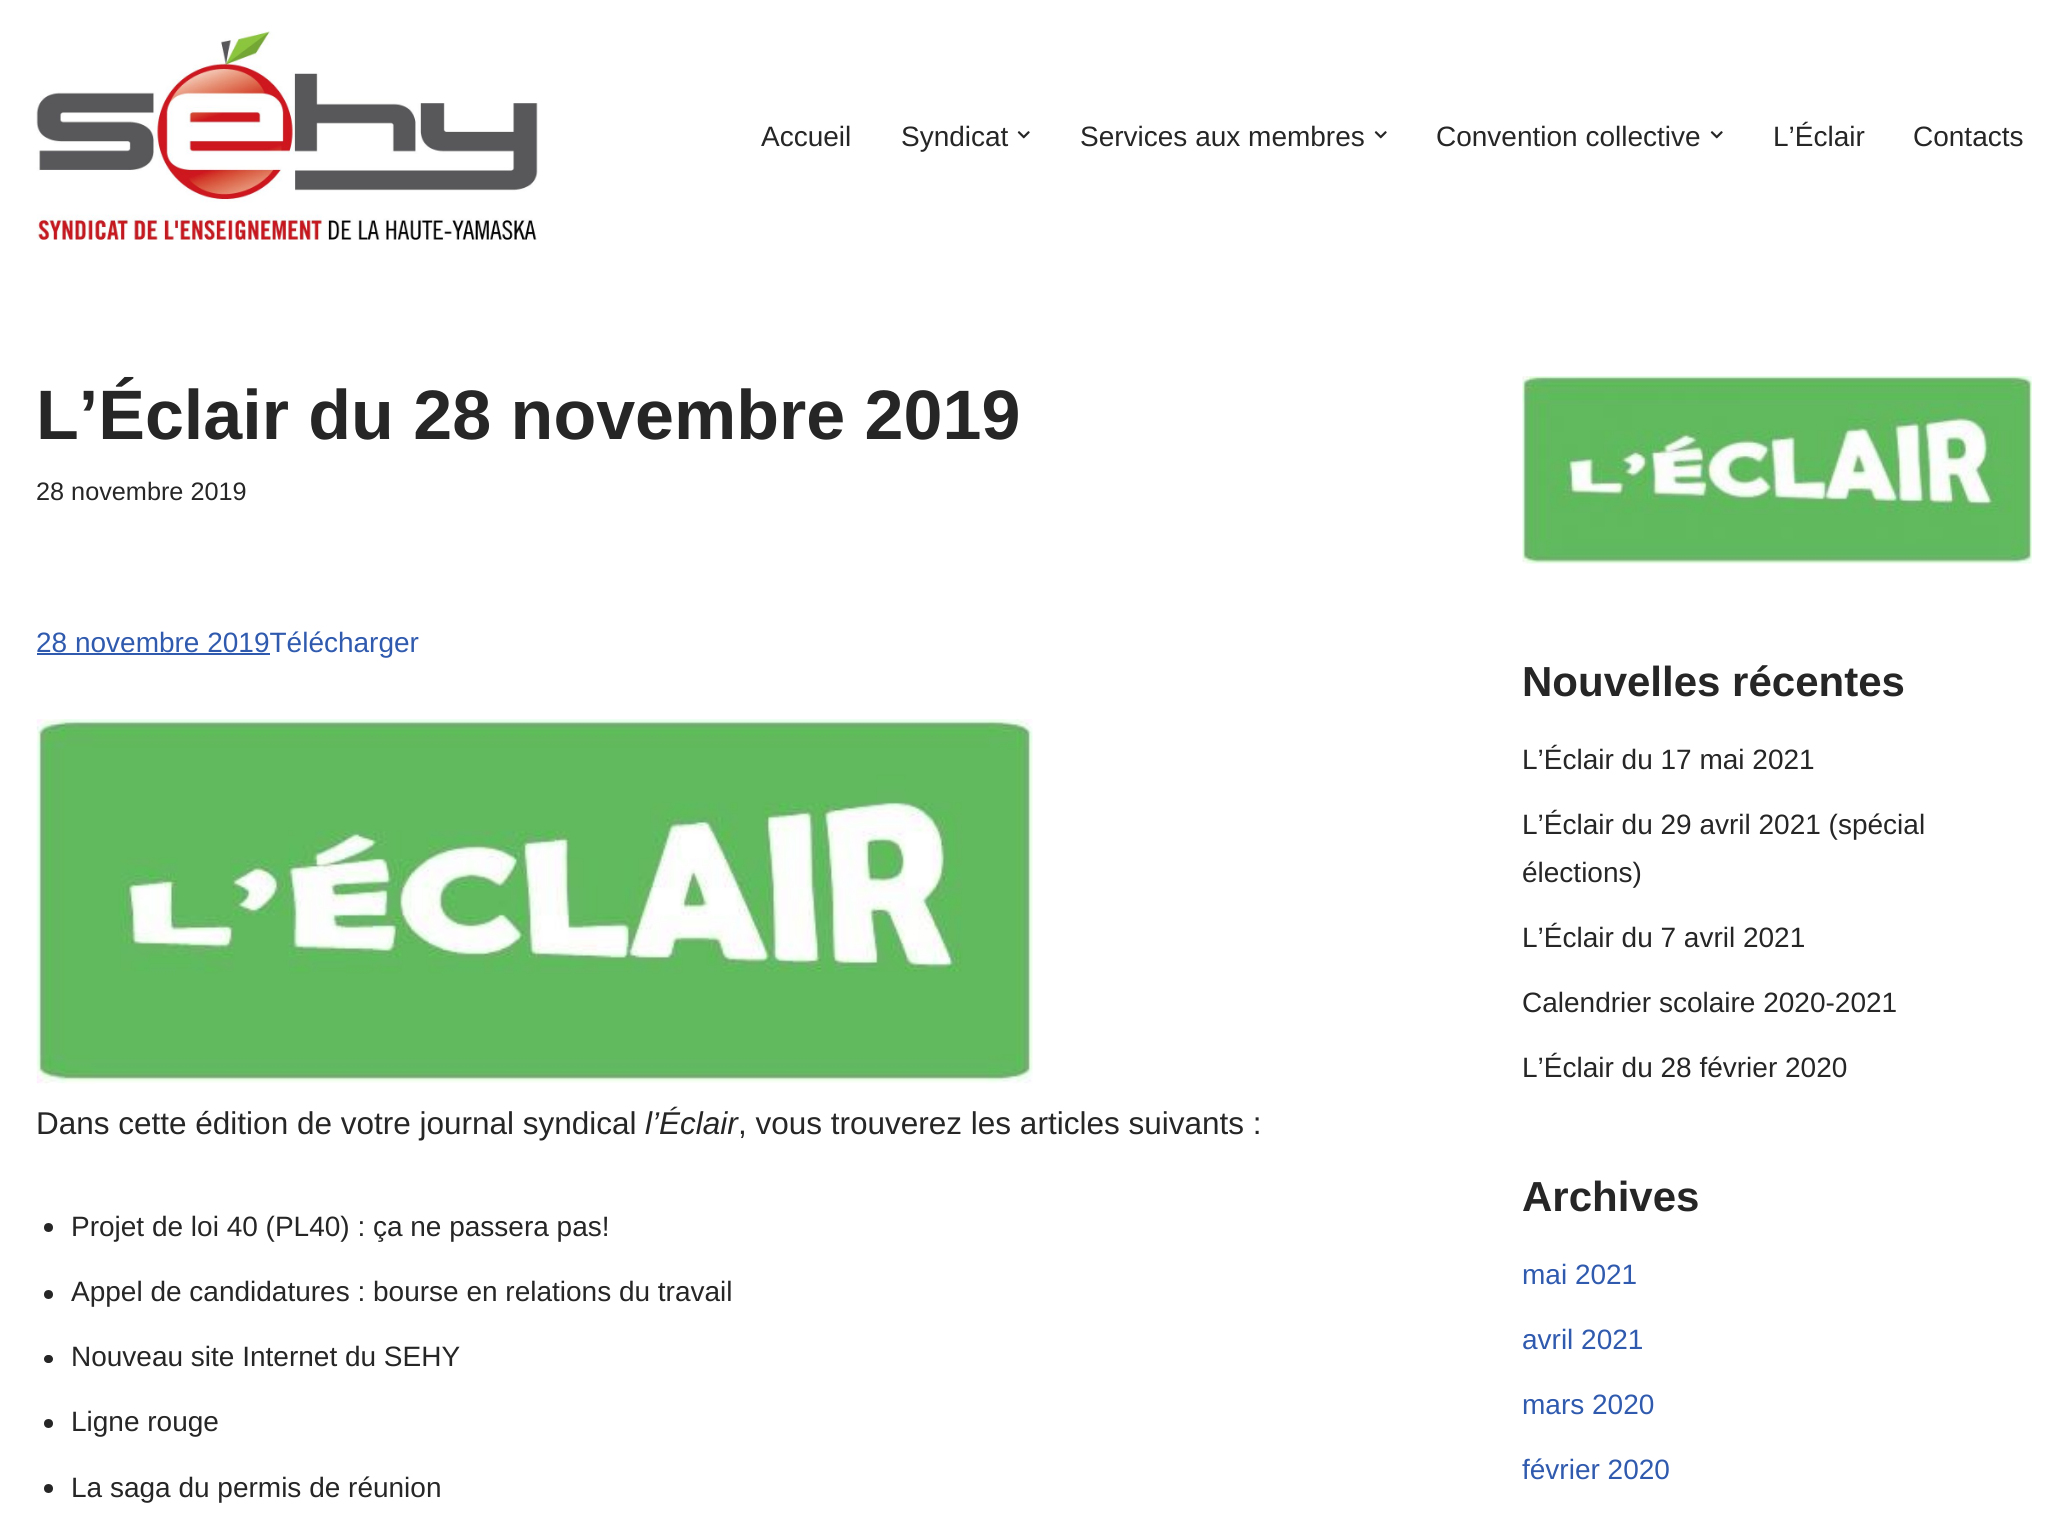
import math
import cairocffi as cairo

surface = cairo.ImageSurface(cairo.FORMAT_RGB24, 2066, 1528)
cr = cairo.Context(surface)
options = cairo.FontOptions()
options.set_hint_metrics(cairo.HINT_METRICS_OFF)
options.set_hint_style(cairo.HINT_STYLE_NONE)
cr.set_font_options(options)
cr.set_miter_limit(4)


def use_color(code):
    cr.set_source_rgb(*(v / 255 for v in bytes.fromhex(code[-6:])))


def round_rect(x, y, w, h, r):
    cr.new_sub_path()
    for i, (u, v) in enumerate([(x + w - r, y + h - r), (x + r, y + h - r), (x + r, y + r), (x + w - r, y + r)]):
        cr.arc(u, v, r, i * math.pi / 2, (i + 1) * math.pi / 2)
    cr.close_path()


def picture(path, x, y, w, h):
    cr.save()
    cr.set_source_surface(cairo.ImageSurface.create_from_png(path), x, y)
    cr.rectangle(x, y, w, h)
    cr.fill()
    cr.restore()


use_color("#ffffff")
cr.paint()
picture("img1.png", 36, 31, 502, 209)
cr.select_font_face("Liberation Sans")
cr.set_font_size(28)
use_color("#272626")
cr.move_to(761, 146)
cr.show_text("Accueil")
cr.move_to(901, 146)
cr.show_text("Syndicat")
picture("img2.png", 1017, 131, 13, 8)
cr.move_to(1080, 146)
cr.show_text("Services aux membres")
picture("img2.png", 1374, 131, 13, 8)
cr.move_to(1436, 146)
cr.show_text("Convention collective")
picture("img2.png", 1710, 131, 13, 8)
cr.move_to(1773, 146)
cr.show_text("L’Éclair")
cr.move_to(1913, 146)
cr.show_text("Contacts")
cr.select_font_face("Liberation Sans", cairo.FONT_SLANT_NORMAL, cairo.FONT_WEIGHT_BOLD)
cr.set_font_size(70)
cr.move_to(36, 439)
cr.show_text("L’Éclair du 28 novembre 2019")
cr.select_font_face("Liberation Sans")
cr.set_font_size(25.25)
cr.move_to(36, 500)
cr.show_text("28 novembre 2019")
use_color("#2f5aae")
cr.rectangle(37, 653, 233, 2)
cr.fill()
cr.set_font_size(28)
cr.move_to(36, 652)
cr.show_text("28 novembre 2019Télécharger")
picture("img3.png", 36, 719, 997, 365)
cr.set_font_size(31.5)
use_color("#272626")
cr.move_to(36, 1134)
cr.show_text("Dans cette édition de votre journal syndical")
cr.select_font_face("Liberation Sans", cairo.FONT_SLANT_ITALIC)
cr.move_to(645, 1134)
cr.show_text("l’Éclair")
cr.select_font_face("Liberation Sans")
cr.move_to(738, 1134)
cr.show_text(", vous trouverez les articles suivants :")
cr.new_path()
cr.arc(48.5, 1227.5, 4.5, 0, 2 * math.pi)
cr.fill()
cr.set_font_size(28)
cr.move_to(71, 1236)
cr.show_text("Projet de loi 40 (PL40) : ça ne passera pas!")
cr.new_path()
cr.arc(48.5, 1294.5, 4.5, 0, 2 * math.pi)
cr.fill()
cr.move_to(71, 1301)
cr.show_text("Appel de candidatures : bourse en relations du travail")
round_rect(44, 1355, 9, 8, 4)
cr.fill()
cr.move_to(71, 1366)
cr.show_text("Nouveau site Internet du SEHY")
cr.new_path()
cr.arc(48.5, 1423.5, 4.5, 0, 2 * math.pi)
cr.fill()
cr.move_to(71, 1431)
cr.show_text("Ligne rouge")
cr.new_path()
cr.arc(48.5, 1488.5, 4.5, 0, 2 * math.pi)
cr.fill()
cr.move_to(71, 1497)
cr.show_text("La saga du permis de réunion")
picture("img4.png", 1522, 376, 510, 188)
cr.select_font_face("Liberation Sans", cairo.FONT_SLANT_NORMAL, cairo.FONT_WEIGHT_BOLD)
cr.set_font_size(42)
cr.move_to(1522, 696)
cr.show_text("Nouvelles récentes")
cr.select_font_face("Liberation Sans")
cr.set_font_size(28)
cr.move_to(1522, 769)
cr.show_text("L’Éclair du 17 mai 2021")
cr.move_to(1522, 834)
cr.show_text("L’Éclair du 29 avril 2021 (spécial")
cr.move_to(1522, 882)
cr.show_text("élections)")
cr.move_to(1522, 947)
cr.show_text("L’Éclair du 7 avril 2021")
cr.move_to(1522, 1012)
cr.show_text("Calendrier scolaire 2020-2021")
cr.move_to(1522, 1077)
cr.show_text("L’Éclair du 28 février 2020")
cr.select_font_face("Liberation Sans", cairo.FONT_SLANT_NORMAL, cairo.FONT_WEIGHT_BOLD)
cr.set_font_size(42)
cr.move_to(1522, 1211)
cr.show_text("Archives")
cr.select_font_face("Liberation Sans")
cr.set_font_size(28)
use_color("#2f5aae")
cr.move_to(1522, 1284)
cr.show_text("mai 2021")
cr.move_to(1522, 1349)
cr.show_text("avril 2021")
cr.move_to(1522, 1414)
cr.show_text("mars 2020")
cr.move_to(1522, 1479)
cr.show_text("février 2020")
surface.write_to_png("result.png")
